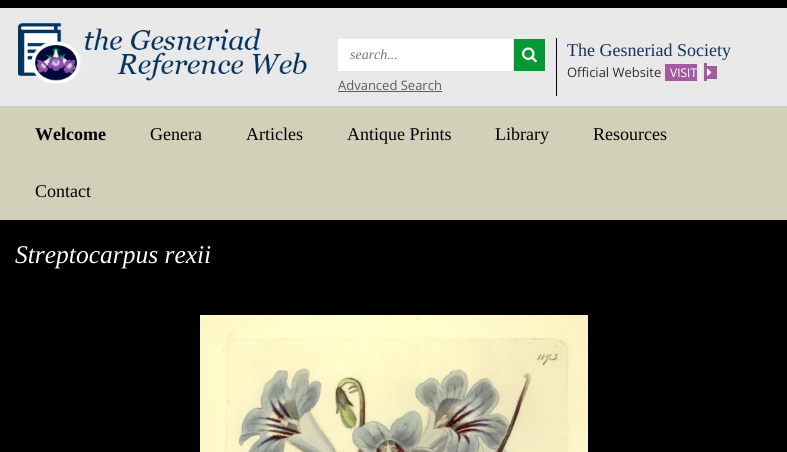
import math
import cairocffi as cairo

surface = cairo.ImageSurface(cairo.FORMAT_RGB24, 787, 452)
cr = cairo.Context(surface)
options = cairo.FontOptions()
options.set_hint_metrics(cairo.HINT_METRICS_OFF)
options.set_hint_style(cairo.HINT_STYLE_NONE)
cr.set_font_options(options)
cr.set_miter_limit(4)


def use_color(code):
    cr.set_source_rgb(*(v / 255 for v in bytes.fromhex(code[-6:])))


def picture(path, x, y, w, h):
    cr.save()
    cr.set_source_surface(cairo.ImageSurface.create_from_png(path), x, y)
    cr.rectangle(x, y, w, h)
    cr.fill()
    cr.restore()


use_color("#e8e8e8")
cr.paint()
use_color("#000000")
cr.rectangle(0, 0, 787, 8)
cr.fill()
picture("img1.png", 18, 23, 289, 61)
cr.rectangle(556, 38, 1, 58)
cr.fill()
use_color("#ffffff")
cr.rectangle(338, 39, 175, 32)
cr.fill()
use_color("#ececec")
cr.rectangle(338, 38, 175, 1)
cr.fill()
cr.select_font_face("Liberation Serif", cairo.FONT_SLANT_ITALIC)
cr.set_font_size(14)
use_color("#777777")
cr.move_to(350, 59)
cr.show_text("search...")
use_color("#009933")
cr.rectangle(514, 39, 31, 32)
cr.fill()
picture("img2.png", 522, 47, 15, 16)
cr.select_font_face("Open Sans")
cr.set_font_size(13)
use_color("#5d5d5d")
cr.move_to(338, 90)
cr.show_text("Advanced Search")
cr.rectangle(338, 91, 104, 1)
cr.fill()
cr.select_font_face("Liberation Serif")
cr.set_font_size(18)
use_color("#12345d")
cr.move_to(567, 56)
cr.show_text("The Gesneriad Society")
cr.select_font_face("Open Sans")
cr.set_font_size(13)
use_color("#362f2d")
cr.move_to(567, 77)
cr.show_text("Official Website")
use_color("#a25ba1")
cr.rectangle(665, 64, 32, 17)
cr.fill()
cr.rectangle(704, 63, 3, 18)
cr.fill()
cr.rectangle(707, 66, 10, 13)
cr.fill()
cr.set_font_size(12)
use_color("#ffffff")
cr.move_to(670, 77)
cr.show_text("VISIT")
cr.rectangle(700, 64, 1, 17)
cr.fill()
picture("img3.png", 707, 68, 5, 8)
use_color("#d2d0b9")
cr.rectangle(0, 106, 787, 114)
cr.fill()
cr.select_font_face("Liberation Serif", cairo.FONT_SLANT_NORMAL, cairo.FONT_WEIGHT_BOLD)
cr.set_font_size(18)
use_color("#000000")
cr.move_to(35, 140)
cr.show_text("Welcome")
cr.select_font_face("Liberation Serif")
cr.move_to(150, 140)
cr.show_text("Genera")
cr.move_to(246, 140)
cr.show_text("Articles")
cr.move_to(347, 140)
cr.show_text("Antique Prints")
cr.move_to(495, 140)
cr.show_text("Library")
cr.move_to(593, 140)
cr.show_text("Resources")
cr.move_to(35, 197)
cr.show_text("Contact")
cr.rectangle(0, 220, 787, 232)
cr.fill()
cr.select_font_face("Liberation Serif", cairo.FONT_SLANT_ITALIC)
cr.set_font_size(25.5)
use_color("#ffffff")
cr.move_to(15, 263)
cr.show_text("Streptocarpus rexii")
picture("img4.png", 200, 315, 388, 137)
surface.write_to_png("result.png")
